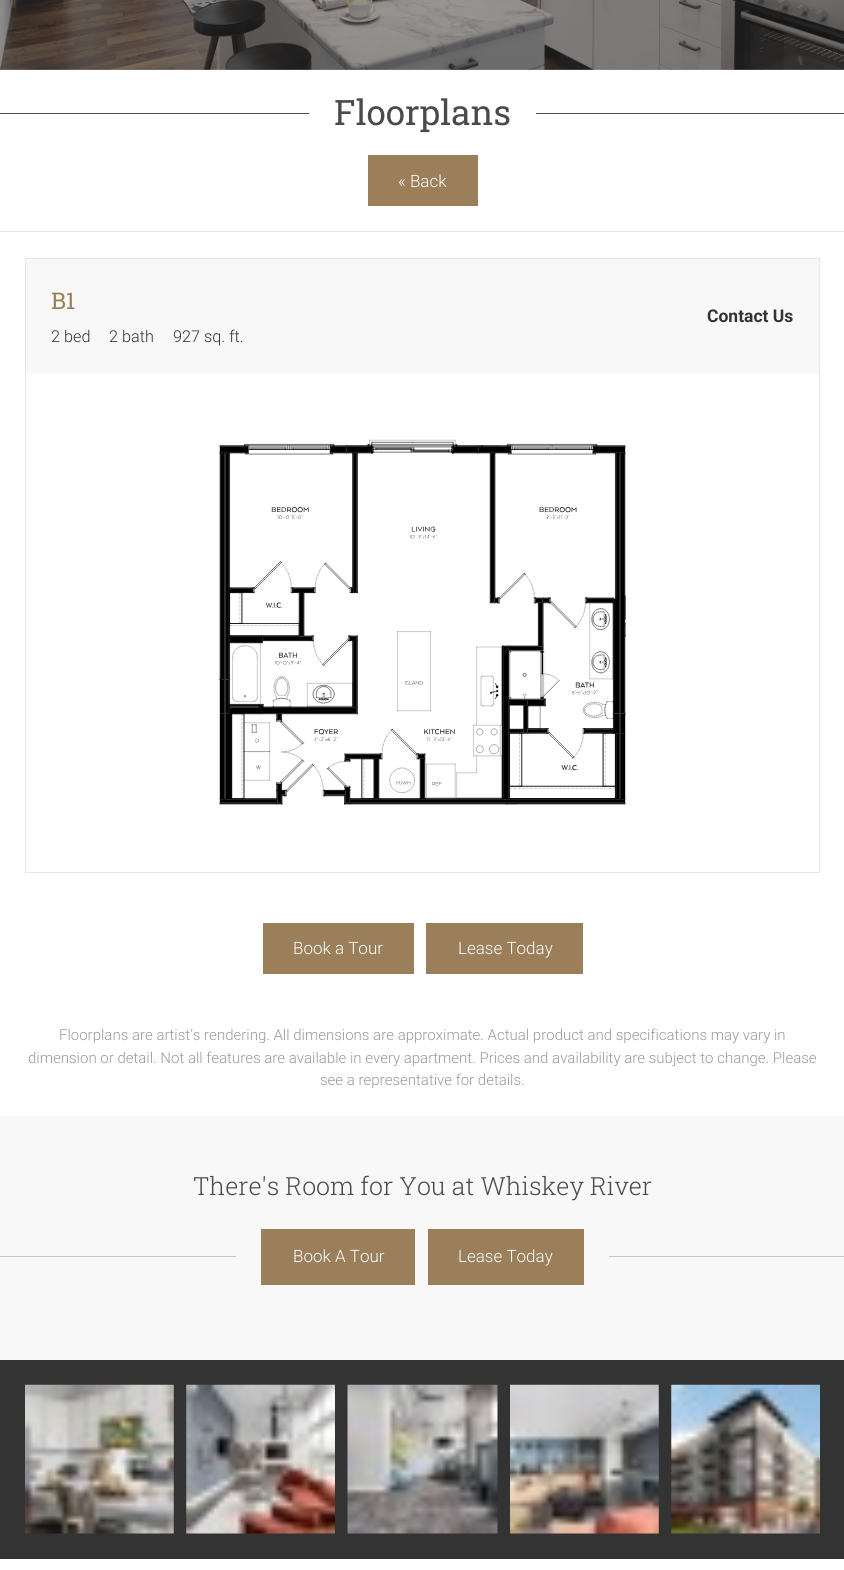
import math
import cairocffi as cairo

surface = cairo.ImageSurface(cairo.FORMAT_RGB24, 844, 1570)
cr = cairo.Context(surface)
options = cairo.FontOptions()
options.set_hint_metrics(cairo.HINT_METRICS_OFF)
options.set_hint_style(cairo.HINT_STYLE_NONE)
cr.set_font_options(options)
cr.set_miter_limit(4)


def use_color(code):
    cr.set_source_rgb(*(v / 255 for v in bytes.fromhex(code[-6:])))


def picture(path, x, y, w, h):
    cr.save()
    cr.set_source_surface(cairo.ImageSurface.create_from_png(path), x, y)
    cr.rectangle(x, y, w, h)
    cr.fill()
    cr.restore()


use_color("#ffffff")
cr.paint()
use_color("#e5e5e5")
cr.rectangle(0, 231, 844, 1)
cr.fill()
picture("img1.png", 0, 69, 844, 1)
picture("img2.png", 0, 0, 844, 70)
use_color("#4c4c4c")
cr.rectangle(0, 113, 309, 1)
cr.fill()
cr.select_font_face("Roboto Slab")
cr.set_font_size(35)
use_color("#4a4a4a")
cr.move_to(334, 125)
cr.show_text("Floorplans")
use_color("#4c4c4c")
cr.rectangle(536, 113, 308, 1)
cr.fill()
use_color("#9a7f5a")
cr.rectangle(368, 155, 110, 51)
cr.fill()
cr.select_font_face("Roboto Light")
cr.set_font_size(17)
use_color("#ffffff")
cr.move_to(398, 187)
cr.show_text("« Back")
cr.rectangle(25.5, 258.5, 794, 614)
use_color("#e5e5e5")
cr.set_line_width(1)
cr.stroke()
use_color("#f8f8f8")
cr.rectangle(26, 259, 793, 115)
cr.fill()
cr.select_font_face("Roboto Slab")
cr.set_font_size(23)
use_color("#9a7f5a")
cr.move_to(51, 309)
cr.show_text("B1")
cr.select_font_face("Roboto Light")
cr.set_font_size(16.25)
use_color("#333333")
cr.move_to(51, 342)
cr.show_text("2 bed")
cr.move_to(109, 342)
cr.show_text("2 bath")
cr.move_to(173, 342)
cr.show_text("927 sq. ft.")
cr.select_font_face("Roboto", cairo.FONT_SLANT_NORMAL, cairo.FONT_WEIGHT_BOLD)
cr.set_font_size(17.5)
cr.move_to(707, 322)
cr.show_text("Contact Us")
picture("img3.png", 219, 439, 407, 366)
use_color("#9a7f5a")
cr.rectangle(263, 923, 151, 51)
cr.fill()
cr.select_font_face("Roboto Light")
cr.set_font_size(17)
use_color("#ffffff")
cr.move_to(293, 954)
cr.show_text("Book a Tour")
use_color("#9a7f5a")
cr.rectangle(426, 923, 157, 51)
cr.fill()
use_color("#ffffff")
cr.move_to(458, 954)
cr.show_text("Lease Today")
cr.set_font_size(15)
use_color("#999999")
cr.move_to(59, 1040)
cr.show_text("Floorplans are artist’s rendering. All dimensions are approximate. Actual product and specifications may vary in")
cr.move_to(28, 1063)
cr.show_text("dimension or detail. Not all features are available in every apartment. Prices and availability are subject to change. Please")
cr.move_to(320, 1085)
cr.show_text("see a representative for details.")
use_color("#f8f8f8")
cr.rectangle(0, 1116, 844, 244)
cr.fill()
cr.select_font_face("Roboto Slab Light")
cr.set_font_size(25)
use_color("#4a4a4a")
cr.move_to(193, 1195)
cr.show_text("There's Room for You at Whiskey River")
use_color("#c6c6c6")
cr.rectangle(0, 1256, 844, 1)
cr.fill()
use_color("#f8f8f8")
cr.rectangle(236, 1256, 373, 1)
cr.fill()
use_color("#9a7f5a")
cr.rectangle(261, 1229, 154, 56)
cr.fill()
cr.select_font_face("Roboto Light")
cr.set_font_size(17)
use_color("#ffffff")
cr.move_to(293, 1262)
cr.show_text("Book A Tour")
use_color("#9a7f5a")
cr.rectangle(428, 1229, 156, 56)
cr.fill()
use_color("#ffffff")
cr.move_to(458, 1262)
cr.show_text("Lease Today")
use_color("#333333")
cr.rectangle(0, 1360, 844, 199)
cr.fill()
picture("img4.png", 25, 1384, 149, 150)
picture("img5.png", 186, 1384, 149, 150)
picture("img6.png", 347, 1384, 151, 150)
picture("img7.png", 510, 1384, 149, 150)
picture("img8.png", 671, 1384, 149, 150)
surface.write_to_png("result.png")
